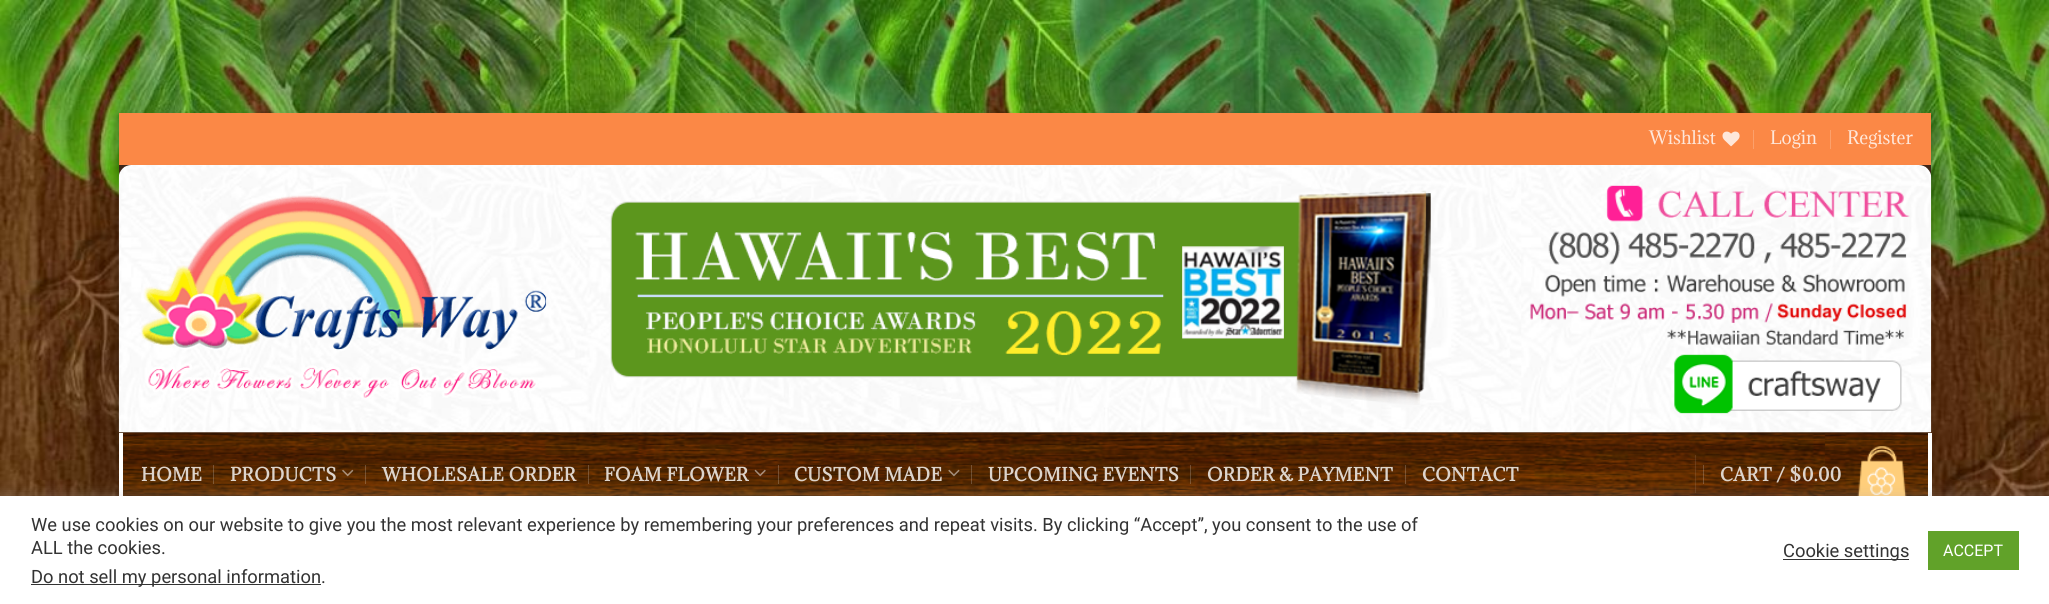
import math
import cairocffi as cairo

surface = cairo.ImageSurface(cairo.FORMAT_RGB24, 2049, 604)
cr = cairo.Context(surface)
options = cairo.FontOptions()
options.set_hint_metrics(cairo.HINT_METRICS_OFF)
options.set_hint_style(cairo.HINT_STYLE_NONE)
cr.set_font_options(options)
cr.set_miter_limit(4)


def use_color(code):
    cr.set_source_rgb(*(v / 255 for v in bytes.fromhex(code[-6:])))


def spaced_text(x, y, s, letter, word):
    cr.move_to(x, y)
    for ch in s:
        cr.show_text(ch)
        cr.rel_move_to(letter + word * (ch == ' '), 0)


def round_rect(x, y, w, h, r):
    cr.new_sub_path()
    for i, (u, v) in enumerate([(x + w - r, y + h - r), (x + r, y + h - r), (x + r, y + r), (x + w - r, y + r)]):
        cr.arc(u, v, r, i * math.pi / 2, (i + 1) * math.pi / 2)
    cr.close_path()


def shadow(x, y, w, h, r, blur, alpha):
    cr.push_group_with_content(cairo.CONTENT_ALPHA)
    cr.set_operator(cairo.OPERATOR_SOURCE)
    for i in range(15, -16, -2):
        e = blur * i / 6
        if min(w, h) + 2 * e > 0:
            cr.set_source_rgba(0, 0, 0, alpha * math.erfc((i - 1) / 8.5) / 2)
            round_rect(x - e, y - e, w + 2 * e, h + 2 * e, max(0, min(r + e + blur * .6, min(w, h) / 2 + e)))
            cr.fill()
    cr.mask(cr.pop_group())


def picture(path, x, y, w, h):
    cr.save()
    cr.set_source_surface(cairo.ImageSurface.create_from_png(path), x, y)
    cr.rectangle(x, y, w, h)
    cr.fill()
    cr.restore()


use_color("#ffffff")
cr.paint()
picture("img1.png", 0, 0, 2049, 496)
use_color("#000000")
shadow(119, 116, 1812, 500, 0, 4, 0.23)
use_color("#fb8846")
cr.rectangle(119, 113, 1812, 52)
cr.fill()
cr.select_font_face("Adamina")
cr.set_font_size(17.1)
use_color("#fee7da")
cr.move_to(1649, 144)
cr.show_text("Wishlist")
picture("img2.png", 1722, 131, 18, 16)
use_color("#fca06b")
cr.rectangle(1753, 130, 1, 19)
cr.fill()
use_color("#fee7da")
cr.move_to(1770, 144)
cr.show_text("Login")
use_color("#fca06b")
cr.rectangle(1830, 130, 1, 19)
cr.fill()
use_color("#fee7da")
cr.move_to(1847, 144)
cr.show_text("Register")
use_color("#3e2618")
cr.rectangle(119, 165, 1812, 268)
cr.fill()
picture("img7.png", 118, 432, 1814, 64)
picture("img3.png", 118, 165, 1814, 268)
picture("img4.png", 141, 195, 406, 203)
picture("img5.png", 610, 190, 821, 215)
picture("img6.png", 1530, 185, 380, 229)
use_color("#ffffff")
cr.rectangle(1928, 433, 4, 63)
cr.fill()
cr.rectangle(119, 433, 4, 63)
cr.fill()
cr.select_font_face("Adamina", cairo.FONT_SLANT_NORMAL, cairo.FONT_WEIGHT_BOLD)
use_color("#ddd4cc")
spaced_text(141, 481, "HOME", 0.3, 0)
cr.set_source_rgba(1, 1, 1, 0.2)
cr.rectangle(213, 465, 1, 19)
cr.fill()
use_color("#ddd4cc")
spaced_text(230, 481, "PRODUCTS", 0.3, 0)
picture("img8.png", 342, 469, 12, 8)
cr.set_source_rgba(1, 1, 1, 0.2)
cr.rectangle(365, 465, 1, 19)
cr.fill()
use_color("#ddd4cc")
spaced_text(382, 481, "WHOLESALE ORDER", 0.3, 0)
cr.set_source_rgba(1, 1, 1, 0.2)
cr.rectangle(588, 465, 1, 19)
cr.fill()
use_color("#ddd4cc")
spaced_text(604, 481, "FOAM FLOWER", 0.3, 0)
picture("img9.png", 754, 469, 12, 8)
cr.set_source_rgba(1, 1, 1, 0.2)
cr.rectangle(778, 465, 1, 19)
cr.fill()
use_color("#ddd4cc")
spaced_text(794, 481, "CUSTOM MADE", 0.3, 0)
picture("img10.png", 948, 469, 12, 8)
cr.set_source_rgba(1, 1, 1, 0.2)
cr.rectangle(971, 465, 1, 19)
cr.fill()
use_color("#ddd4cc")
spaced_text(988, 481, "UPCOMING EVENTS", 0.3, 0)
cr.set_source_rgba(1, 1, 1, 0.2)
cr.rectangle(1190, 465, 1, 19)
cr.fill()
use_color("#ddd4cc")
spaced_text(1207, 481, "ORDER & PAYMENT", 0.3, 0)
cr.set_source_rgba(1, 1, 1, 0.2)
cr.rectangle(1405, 465, 1, 19)
cr.fill()
use_color("#ddd4cc")
spaced_text(1422, 481, "CONTACT", 0.3, 0)
cr.set_source_rgba(1, 1, 1, 0.1)
cr.rectangle(1695, 455, 1, 38)
cr.fill()
cr.set_source_rgba(1, 1, 1, 0.2)
cr.rectangle(1703, 465, 1, 19)
cr.fill()
use_color("#ddd4cc")
spaced_text(1720, 481, "CART", 0.3, 0)
spaced_text(1776, 481, "/ $", 0.3, 0)
spaced_text(1802, 481, "0.00", 0.3, 0)
picture("img11.png", 1857, 446, 50, 50)
use_color("#acabab")
shadow(0, 495, 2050, 109, 0, 6, 0.3)
use_color("#ffffff")
cr.rectangle(0, 496, 2049, 108)
cr.fill()
cr.select_font_face("Roboto")
cr.set_font_size(18.33)
use_color("#333333")
cr.move_to(31, 531)
cr.show_text("We use cookies on our website to give you the most relevant experience by remembering your preferences and repeat visits. By clicking “Accept”, you consent to the use of")
cr.move_to(31, 554)
cr.show_text("ALL the cookies.")
cr.rectangle(31, 584, 290, 1)
cr.fill()
cr.move_to(31, 583)
cr.show_text("Do not sell my personal information.")
cr.rectangle(1783, 559, 126, 1)
cr.fill()
cr.move_to(1783, 557)
cr.show_text("Cookie settings")
use_color("#61a229")
cr.rectangle(1928, 531, 91, 39)
cr.fill()
cr.set_font_size(16)
use_color("#ffffff")
cr.move_to(1943, 556)
cr.show_text("ACCEPT")
surface.write_to_png("result.png")
